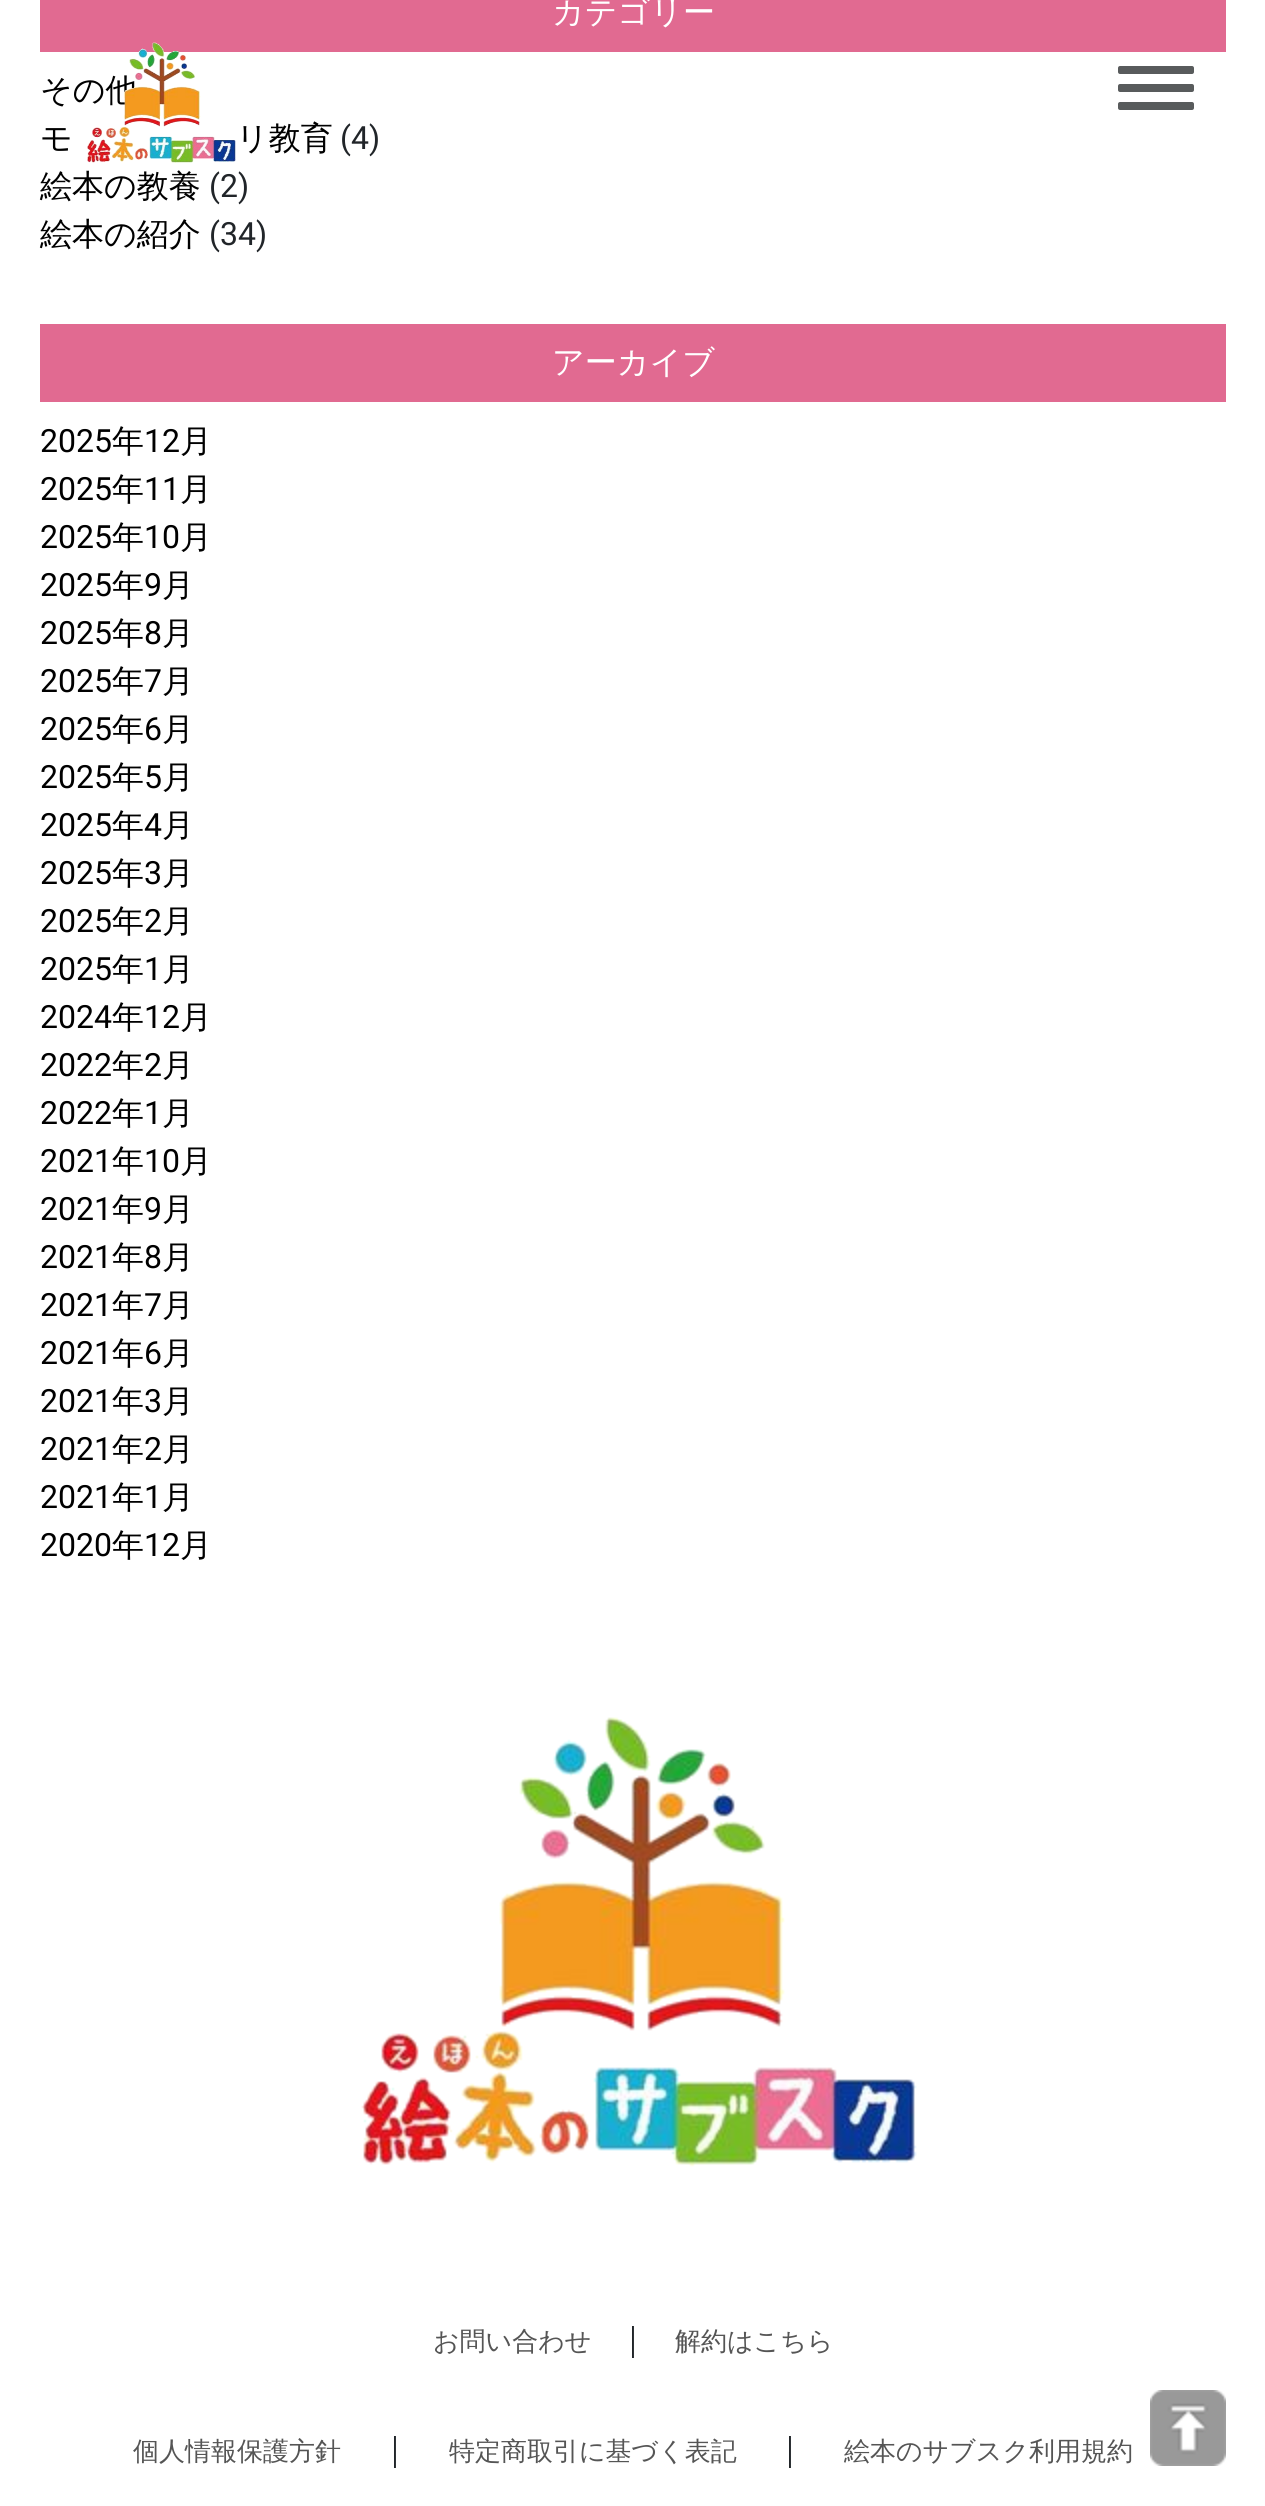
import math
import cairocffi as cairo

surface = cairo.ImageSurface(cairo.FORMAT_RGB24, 1265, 2506)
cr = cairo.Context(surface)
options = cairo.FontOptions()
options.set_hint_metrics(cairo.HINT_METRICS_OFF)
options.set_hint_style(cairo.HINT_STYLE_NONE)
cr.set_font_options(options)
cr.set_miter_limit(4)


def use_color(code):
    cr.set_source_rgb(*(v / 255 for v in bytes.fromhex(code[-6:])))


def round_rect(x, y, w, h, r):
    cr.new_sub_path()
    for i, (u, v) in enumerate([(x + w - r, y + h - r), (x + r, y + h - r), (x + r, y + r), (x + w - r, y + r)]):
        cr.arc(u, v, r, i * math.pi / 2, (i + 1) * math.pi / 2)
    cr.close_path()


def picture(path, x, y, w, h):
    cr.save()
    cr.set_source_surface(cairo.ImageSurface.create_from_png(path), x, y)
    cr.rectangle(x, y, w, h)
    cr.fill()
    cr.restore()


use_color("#ffffff")
cr.paint()
use_color("#e16a91")
cr.rectangle(40, 0, 1186, 52)
cr.fill()
cr.select_font_face("WenQuanYi Zen Hei Medium")
cr.set_font_size(32)
use_color("#ffffff")
cr.move_to(552, 23)
cr.show_text("カテゴリー")
use_color("#000000")
cr.move_to(40, 101)
cr.show_text("その他")
cr.move_to(40, 149)
cr.show_text("モ")
cr.move_to(236, 149)
cr.show_text("リ教育")
cr.select_font_face("Roboto")
use_color("#212529")
cr.move_to(340, 149)
cr.show_text("(4)")
cr.select_font_face("WenQuanYi Zen Hei Medium")
use_color("#000000")
cr.move_to(40, 197)
cr.show_text("絵本の教養")
cr.select_font_face("Roboto")
use_color("#212529")
cr.move_to(209, 197)
cr.show_text("(2)")
cr.select_font_face("WenQuanYi Zen Hei Medium")
use_color("#000000")
cr.move_to(40, 245)
cr.show_text("絵本の紹介")
cr.select_font_face("Roboto")
use_color("#212529")
cr.move_to(209, 245)
cr.show_text("(34)")
use_color("#e16a91")
cr.rectangle(40, 324, 1186, 78)
cr.fill()
cr.select_font_face("WenQuanYi Zen Hei Medium")
use_color("#ffffff")
cr.move_to(552, 373)
cr.show_text("アーカイブ")
cr.select_font_face("Roboto")
use_color("#000000")
cr.move_to(40, 452)
cr.show_text("2025")
cr.select_font_face("WenQuanYi Zen Hei Medium")
cr.move_to(112, 452)
cr.show_text("年")
cr.select_font_face("Roboto")
cr.move_to(144, 452)
cr.show_text("12")
cr.select_font_face("WenQuanYi Zen Hei Medium")
cr.move_to(180, 452)
cr.show_text("月")
cr.select_font_face("Roboto")
cr.move_to(40, 500)
cr.show_text("2025")
cr.select_font_face("WenQuanYi Zen Hei Medium")
cr.move_to(112, 500)
cr.show_text("年")
cr.select_font_face("Roboto")
cr.move_to(144, 500)
cr.show_text("11")
cr.select_font_face("WenQuanYi Zen Hei Medium")
cr.move_to(180, 500)
cr.show_text("月")
cr.select_font_face("Roboto")
cr.move_to(40, 548)
cr.show_text("2025")
cr.select_font_face("WenQuanYi Zen Hei Medium")
cr.move_to(112, 548)
cr.show_text("年")
cr.select_font_face("Roboto")
cr.move_to(144, 548)
cr.show_text("10")
cr.select_font_face("WenQuanYi Zen Hei Medium")
cr.move_to(180, 548)
cr.show_text("月")
cr.select_font_face("Roboto")
cr.move_to(40, 596)
cr.show_text("2025")
cr.select_font_face("WenQuanYi Zen Hei Medium")
cr.move_to(112, 596)
cr.show_text("年")
cr.select_font_face("Roboto")
cr.move_to(144, 596)
cr.show_text("9")
cr.select_font_face("WenQuanYi Zen Hei Medium")
cr.move_to(162, 596)
cr.show_text("月")
cr.select_font_face("Roboto")
cr.move_to(40, 644)
cr.show_text("2025")
cr.select_font_face("WenQuanYi Zen Hei Medium")
cr.move_to(112, 644)
cr.show_text("年")
cr.select_font_face("Roboto")
cr.move_to(144, 644)
cr.show_text("8")
cr.select_font_face("WenQuanYi Zen Hei Medium")
cr.move_to(162, 644)
cr.show_text("月")
cr.select_font_face("Roboto")
cr.move_to(40, 692)
cr.show_text("2025")
cr.select_font_face("WenQuanYi Zen Hei Medium")
cr.move_to(112, 692)
cr.show_text("年")
cr.select_font_face("Roboto")
cr.move_to(144, 692)
cr.show_text("7")
cr.select_font_face("WenQuanYi Zen Hei Medium")
cr.move_to(162, 692)
cr.show_text("月")
cr.select_font_face("Roboto")
cr.move_to(40, 740)
cr.show_text("2025")
cr.select_font_face("WenQuanYi Zen Hei Medium")
cr.move_to(112, 740)
cr.show_text("年")
cr.select_font_face("Roboto")
cr.move_to(144, 740)
cr.show_text("6")
cr.select_font_face("WenQuanYi Zen Hei Medium")
cr.move_to(162, 740)
cr.show_text("月")
cr.select_font_face("Roboto")
cr.move_to(40, 788)
cr.show_text("2025")
cr.select_font_face("WenQuanYi Zen Hei Medium")
cr.move_to(112, 788)
cr.show_text("年")
cr.select_font_face("Roboto")
cr.move_to(144, 788)
cr.show_text("5")
cr.select_font_face("WenQuanYi Zen Hei Medium")
cr.move_to(162, 788)
cr.show_text("月")
cr.select_font_face("Roboto")
cr.move_to(40, 836)
cr.show_text("2025")
cr.select_font_face("WenQuanYi Zen Hei Medium")
cr.move_to(112, 836)
cr.show_text("年")
cr.select_font_face("Roboto")
cr.move_to(144, 836)
cr.show_text("4")
cr.select_font_face("WenQuanYi Zen Hei Medium")
cr.move_to(162, 836)
cr.show_text("月")
cr.select_font_face("Roboto")
cr.move_to(40, 884)
cr.show_text("2025")
cr.select_font_face("WenQuanYi Zen Hei Medium")
cr.move_to(112, 884)
cr.show_text("年")
cr.select_font_face("Roboto")
cr.move_to(144, 884)
cr.show_text("3")
cr.select_font_face("WenQuanYi Zen Hei Medium")
cr.move_to(162, 884)
cr.show_text("月")
cr.select_font_face("Roboto")
cr.move_to(40, 932)
cr.show_text("2025")
cr.select_font_face("WenQuanYi Zen Hei Medium")
cr.move_to(112, 932)
cr.show_text("年")
cr.select_font_face("Roboto")
cr.move_to(144, 932)
cr.show_text("2")
cr.select_font_face("WenQuanYi Zen Hei Medium")
cr.move_to(162, 932)
cr.show_text("月")
cr.select_font_face("Roboto")
cr.move_to(40, 980)
cr.show_text("2025")
cr.select_font_face("WenQuanYi Zen Hei Medium")
cr.move_to(112, 980)
cr.show_text("年")
cr.select_font_face("Roboto")
cr.move_to(144, 980)
cr.show_text("1")
cr.select_font_face("WenQuanYi Zen Hei Medium")
cr.move_to(162, 980)
cr.show_text("月")
cr.select_font_face("Roboto")
cr.move_to(40, 1028)
cr.show_text("2024")
cr.select_font_face("WenQuanYi Zen Hei Medium")
cr.move_to(112, 1028)
cr.show_text("年")
cr.select_font_face("Roboto")
cr.move_to(144, 1028)
cr.show_text("12")
cr.select_font_face("WenQuanYi Zen Hei Medium")
cr.move_to(180, 1028)
cr.show_text("月")
cr.select_font_face("Roboto")
cr.move_to(40, 1076)
cr.show_text("2022")
cr.select_font_face("WenQuanYi Zen Hei Medium")
cr.move_to(112, 1076)
cr.show_text("年")
cr.select_font_face("Roboto")
cr.move_to(144, 1076)
cr.show_text("2")
cr.select_font_face("WenQuanYi Zen Hei Medium")
cr.move_to(162, 1076)
cr.show_text("月")
cr.select_font_face("Roboto")
cr.move_to(40, 1124)
cr.show_text("2022")
cr.select_font_face("WenQuanYi Zen Hei Medium")
cr.move_to(112, 1124)
cr.show_text("年")
cr.select_font_face("Roboto")
cr.move_to(144, 1124)
cr.show_text("1")
cr.select_font_face("WenQuanYi Zen Hei Medium")
cr.move_to(162, 1124)
cr.show_text("月")
cr.select_font_face("Roboto")
cr.move_to(40, 1172)
cr.show_text("2021")
cr.select_font_face("WenQuanYi Zen Hei Medium")
cr.move_to(112, 1172)
cr.show_text("年")
cr.select_font_face("Roboto")
cr.move_to(144, 1172)
cr.show_text("10")
cr.select_font_face("WenQuanYi Zen Hei Medium")
cr.move_to(180, 1172)
cr.show_text("月")
cr.select_font_face("Roboto")
cr.move_to(40, 1220)
cr.show_text("2021")
cr.select_font_face("WenQuanYi Zen Hei Medium")
cr.move_to(112, 1220)
cr.show_text("年")
cr.select_font_face("Roboto")
cr.move_to(144, 1220)
cr.show_text("9")
cr.select_font_face("WenQuanYi Zen Hei Medium")
cr.move_to(162, 1220)
cr.show_text("月")
cr.select_font_face("Roboto")
cr.move_to(40, 1268)
cr.show_text("2021")
cr.select_font_face("WenQuanYi Zen Hei Medium")
cr.move_to(112, 1268)
cr.show_text("年")
cr.select_font_face("Roboto")
cr.move_to(144, 1268)
cr.show_text("8")
cr.select_font_face("WenQuanYi Zen Hei Medium")
cr.move_to(162, 1268)
cr.show_text("月")
cr.select_font_face("Roboto")
cr.move_to(40, 1316)
cr.show_text("2021")
cr.select_font_face("WenQuanYi Zen Hei Medium")
cr.move_to(112, 1316)
cr.show_text("年")
cr.select_font_face("Roboto")
cr.move_to(144, 1316)
cr.show_text("7")
cr.select_font_face("WenQuanYi Zen Hei Medium")
cr.move_to(162, 1316)
cr.show_text("月")
cr.select_font_face("Roboto")
cr.move_to(40, 1364)
cr.show_text("2021")
cr.select_font_face("WenQuanYi Zen Hei Medium")
cr.move_to(112, 1364)
cr.show_text("年")
cr.select_font_face("Roboto")
cr.move_to(144, 1364)
cr.show_text("6")
cr.select_font_face("WenQuanYi Zen Hei Medium")
cr.move_to(162, 1364)
cr.show_text("月")
cr.select_font_face("Roboto")
cr.move_to(40, 1412)
cr.show_text("2021")
cr.select_font_face("WenQuanYi Zen Hei Medium")
cr.move_to(112, 1412)
cr.show_text("年")
cr.select_font_face("Roboto")
cr.move_to(144, 1412)
cr.show_text("3")
cr.select_font_face("WenQuanYi Zen Hei Medium")
cr.move_to(162, 1412)
cr.show_text("月")
cr.select_font_face("Roboto")
cr.move_to(40, 1460)
cr.show_text("2021")
cr.select_font_face("WenQuanYi Zen Hei Medium")
cr.move_to(112, 1460)
cr.show_text("年")
cr.select_font_face("Roboto")
cr.move_to(144, 1460)
cr.show_text("2")
cr.select_font_face("WenQuanYi Zen Hei Medium")
cr.move_to(162, 1460)
cr.show_text("月")
cr.select_font_face("Roboto")
cr.move_to(40, 1508)
cr.show_text("2021")
cr.select_font_face("WenQuanYi Zen Hei Medium")
cr.move_to(112, 1508)
cr.show_text("年")
cr.select_font_face("Roboto")
cr.move_to(144, 1508)
cr.show_text("1")
cr.select_font_face("WenQuanYi Zen Hei Medium")
cr.move_to(162, 1508)
cr.show_text("月")
cr.select_font_face("Roboto")
cr.move_to(40, 1556)
cr.show_text("2020")
cr.select_font_face("WenQuanYi Zen Hei Medium")
cr.move_to(112, 1556)
cr.show_text("年")
cr.select_font_face("Roboto")
cr.move_to(144, 1556)
cr.show_text("12")
cr.select_font_face("WenQuanYi Zen Hei Medium")
cr.move_to(180, 1556)
cr.show_text("月")
picture("img1.png", 87, 42, 149, 121)
use_color("#585b5c")
round_rect(1118, 66, 76, 8, 2)
cr.fill()
round_rect(1118, 84, 76, 8, 2)
cr.fill()
round_rect(1118, 102, 76, 8, 2)
cr.fill()
picture("img2.png", 361, 1717, 556, 450)
cr.set_font_size(26)
use_color("#555555")
cr.move_to(433, 2350)
cr.show_text("お問い合わせ")
cr.set_font_size(32)
use_color("#212529")
cr.move_to(617, 2350)
cr.show_text("｜")
cr.set_font_size(26)
use_color("#555555")
cr.move_to(675, 2350)
cr.show_text("解約はこちら")
cr.move_to(133, 2460)
cr.show_text("個人情報保護方針")
cr.set_font_size(32)
use_color("#212529")
cr.move_to(379, 2460)
cr.show_text("｜")
cr.set_font_size(26)
use_color("#555555")
cr.move_to(449, 2460)
cr.show_text("特定商取引に基づく表記")
cr.set_font_size(32)
use_color("#212529")
cr.move_to(774, 2460)
cr.show_text("｜")
cr.set_font_size(26)
use_color("#555555")
cr.move_to(844, 2460)
cr.show_text("絵本のサブスク利用規約")
picture("img3.png", 1150, 2390, 76, 76)
surface.write_to_png("result.png")
